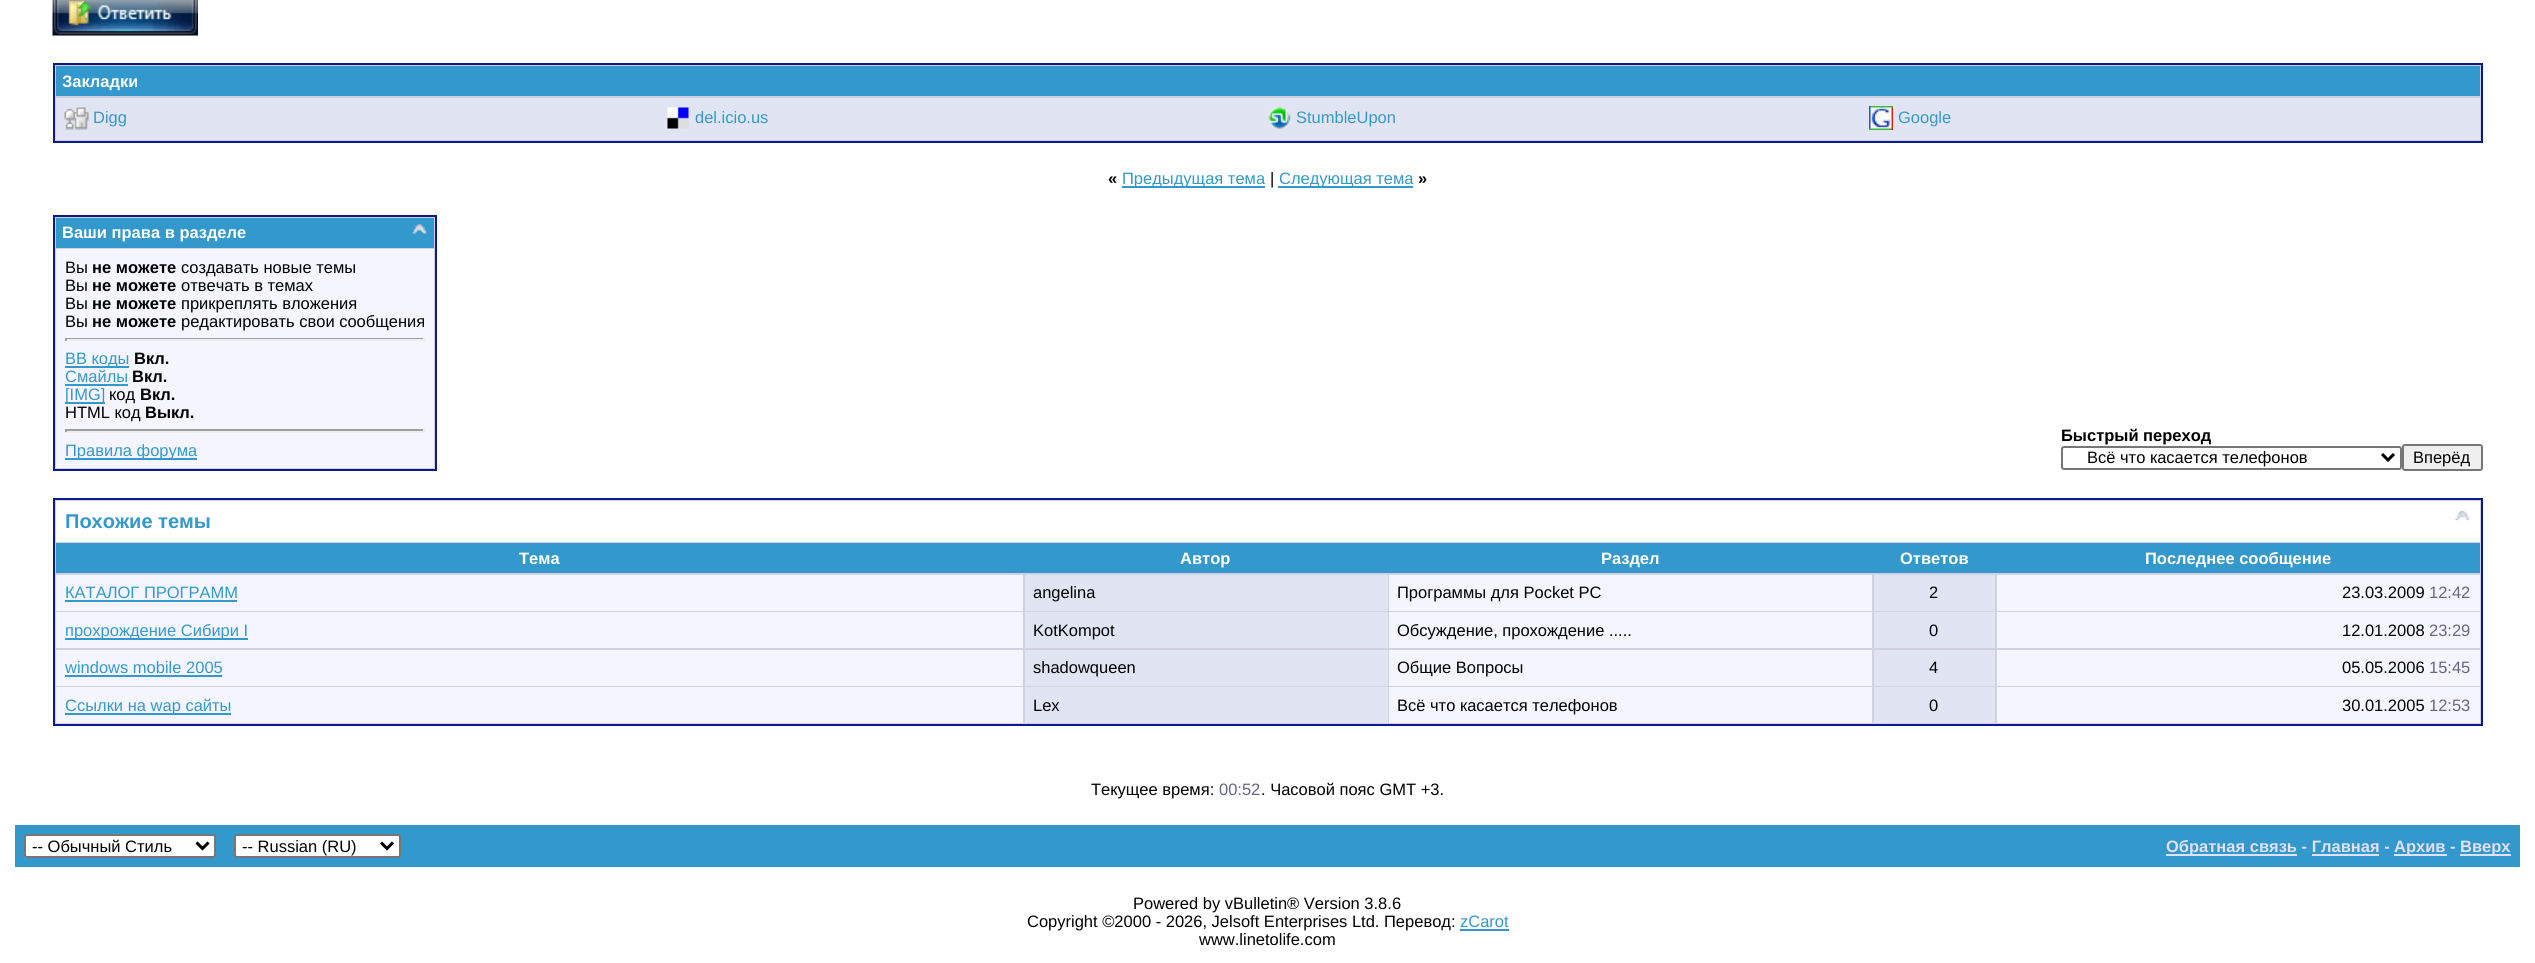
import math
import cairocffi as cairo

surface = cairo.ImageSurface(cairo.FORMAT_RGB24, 2535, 963)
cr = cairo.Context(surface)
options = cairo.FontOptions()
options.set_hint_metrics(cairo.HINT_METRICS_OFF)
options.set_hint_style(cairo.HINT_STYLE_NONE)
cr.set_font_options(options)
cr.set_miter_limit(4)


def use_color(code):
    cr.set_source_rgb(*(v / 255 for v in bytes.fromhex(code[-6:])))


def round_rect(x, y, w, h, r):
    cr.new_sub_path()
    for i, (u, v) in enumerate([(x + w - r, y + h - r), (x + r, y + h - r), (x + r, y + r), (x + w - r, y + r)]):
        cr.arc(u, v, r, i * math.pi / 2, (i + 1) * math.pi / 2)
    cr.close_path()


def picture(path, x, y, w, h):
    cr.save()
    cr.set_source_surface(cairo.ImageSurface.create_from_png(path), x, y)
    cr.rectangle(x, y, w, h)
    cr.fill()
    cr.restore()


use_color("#ffffff")
cr.paint()
picture("img1.png", 52, 0, 146, 36)
use_color("#d1d1e1")
cr.rectangle(54, 64, 2428, 78)
cr.fill_preserve()
use_color("#0b198c")
cr.stroke()
use_color("#3399cc")
cr.rectangle(56, 66, 2424, 30)
cr.fill()
cr.select_font_face("Liberation Sans", cairo.FONT_SLANT_NORMAL, cairo.FONT_WEIGHT_BOLD)
cr.set_font_size(16.5)
use_color("#ffffff")
cr.move_to(62, 87)
cr.show_text("Закладки")
use_color("#e1e4f2")
cr.rectangle(56, 98, 2424, 42)
cr.fill()
picture("img2.png", 64, 107, 25, 23)
cr.select_font_face("Liberation Sans")
use_color("#3399cc")
cr.move_to(93, 123)
cr.show_text("Digg")
picture("img3.png", 667, 107, 22, 22)
cr.move_to(695, 123)
cr.show_text("del.icio.us")
picture("img4.png", 1268, 107, 23, 22)
cr.move_to(1296, 123)
cr.show_text("StumbleUpon")
picture("img5.png", 1869, 106, 24, 24)
cr.move_to(1898, 123)
cr.show_text("Google")
cr.select_font_face("Liberation Sans", cairo.FONT_SLANT_NORMAL, cairo.FONT_WEIGHT_BOLD)
use_color("#000000")
cr.move_to(1108, 184)
cr.show_text("«")
use_color("#3399cc")
cr.rectangle(1122, 186, 143, 2)
cr.fill()
cr.select_font_face("Liberation Sans")
cr.move_to(1122, 184)
cr.show_text("Предыдущая тема")
use_color("#000000")
cr.move_to(1270, 184)
cr.show_text("|")
use_color("#3399cc")
cr.rectangle(1278, 186, 135, 2)
cr.fill()
cr.move_to(1279, 184)
cr.show_text("Следующая тема")
cr.select_font_face("Liberation Sans", cairo.FONT_SLANT_NORMAL, cairo.FONT_WEIGHT_BOLD)
use_color("#000000")
cr.move_to(1418, 184)
cr.show_text("»")
use_color("#d1d1e1")
cr.rectangle(54, 216, 382, 254)
cr.fill_preserve()
use_color("#0b198c")
cr.stroke()
use_color("#3399cc")
cr.rectangle(56, 218, 378, 30)
cr.fill()
use_color("#ffffff")
cr.move_to(62, 238)
cr.show_text("Ваши права в разделе")
picture("img6.png", 412, 224, 15, 10)
use_color("#f5f5ff")
cr.rectangle(56, 249, 378, 219)
cr.fill()
cr.select_font_face("Liberation Sans")
use_color("#000000")
cr.move_to(65, 273)
cr.show_text("Вы")
cr.select_font_face("Liberation Sans", cairo.FONT_SLANT_NORMAL, cairo.FONT_WEIGHT_BOLD)
cr.move_to(92, 273)
cr.show_text("не можете")
cr.select_font_face("Liberation Sans")
cr.move_to(181, 273)
cr.show_text("создавать новые темы")
cr.move_to(65, 291)
cr.show_text("Вы")
cr.select_font_face("Liberation Sans", cairo.FONT_SLANT_NORMAL, cairo.FONT_WEIGHT_BOLD)
cr.move_to(92, 291)
cr.show_text("не можете")
cr.select_font_face("Liberation Sans")
cr.move_to(181, 291)
cr.show_text("отвечать в темах")
cr.move_to(65, 309)
cr.show_text("Вы")
cr.select_font_face("Liberation Sans", cairo.FONT_SLANT_NORMAL, cairo.FONT_WEIGHT_BOLD)
cr.move_to(92, 309)
cr.show_text("не можете")
cr.select_font_face("Liberation Sans")
cr.move_to(181, 309)
cr.show_text("прикреплять вложения")
cr.move_to(65, 327)
cr.show_text("Вы")
cr.select_font_face("Liberation Sans", cairo.FONT_SLANT_NORMAL, cairo.FONT_WEIGHT_BOLD)
cr.move_to(92, 327)
cr.show_text("не можете")
cr.select_font_face("Liberation Sans")
cr.move_to(181, 327)
cr.show_text("редактировать свои сообщения")
use_color("#9f9f9f")
cr.rectangle(65, 338, 360, 1)
cr.fill()
use_color("#eeeeee")
cr.rectangle(423, 338, 2, 3)
cr.fill()
cr.rectangle(65, 339, 360, 2)
cr.fill()
use_color("#9f9f9f")
cr.rectangle(65, 338, 2, 3)
cr.fill()
use_color("#3399cc")
cr.rectangle(65, 366, 64, 2)
cr.fill()
cr.move_to(65, 364)
cr.show_text("BB коды")
cr.select_font_face("Liberation Sans", cairo.FONT_SLANT_NORMAL, cairo.FONT_WEIGHT_BOLD)
use_color("#000000")
cr.move_to(134, 364)
cr.show_text("Вкл.")
cr.select_font_face("Liberation Sans")
use_color("#3399cc")
cr.move_to(65, 382)
cr.show_text("Смайлы")
cr.rectangle(65, 384, 63, 2)
cr.fill()
cr.select_font_face("Liberation Sans", cairo.FONT_SLANT_NORMAL, cairo.FONT_WEIGHT_BOLD)
use_color("#000000")
cr.move_to(132, 382)
cr.show_text("Вкл.")
use_color("#3399cc")
cr.rectangle(65, 402, 40, 2)
cr.fill()
cr.select_font_face("Liberation Sans")
cr.move_to(65, 400)
cr.show_text("[IMG]")
use_color("#000000")
cr.move_to(109, 400)
cr.show_text("код")
cr.select_font_face("Liberation Sans", cairo.FONT_SLANT_NORMAL, cairo.FONT_WEIGHT_BOLD)
cr.move_to(140, 400)
cr.show_text("Вкл.")
cr.select_font_face("Liberation Sans")
cr.move_to(65, 418)
cr.show_text("HTML код")
cr.select_font_face("Liberation Sans", cairo.FONT_SLANT_NORMAL, cairo.FONT_WEIGHT_BOLD)
cr.move_to(145, 418)
cr.show_text("Выкл.")
use_color("#9f9f9f")
cr.rectangle(65, 429, 360, 2)
cr.fill()
use_color("#eeeeee")
cr.rectangle(423, 429, 2, 3)
cr.fill()
cr.rectangle(65, 431, 360, 2)
cr.fill()
use_color("#9f9f9f")
cr.rectangle(65, 429, 2, 3)
cr.fill()
use_color("#3399cc")
cr.rectangle(65, 458, 132, 2)
cr.fill()
cr.select_font_face("Liberation Sans")
cr.move_to(65, 456)
cr.show_text("Правила форума")
cr.select_font_face("Liberation Sans", cairo.FONT_SLANT_NORMAL, cairo.FONT_WEIGHT_BOLD)
use_color("#000000")
cr.move_to(2061, 441)
cr.show_text("Быстрый переход")
round_rect(2062, 447, 339, 22, 2)
use_color("#767676")
cr.stroke()
cr.new_path()
cr.move_to(2382, 454)
cr.line_to(2388, 460)
cr.line_to(2394, 454)
use_color("#000000")
cr.set_line_width(3)
cr.stroke()
cr.select_font_face("Liberation Sans")
cr.move_to(2087, 463)
cr.show_text("Всё что касается телефонов")
use_color("#efefef")
round_rect(2403, 445, 79, 25, 2)
cr.fill_preserve()
use_color("#767676")
cr.set_line_width(2)
cr.stroke()
use_color("#000000")
cr.move_to(2413, 463)
cr.show_text("Вперёд")
use_color("#d1d1e1")
cr.rectangle(54, 499, 2428, 226)
cr.fill_preserve()
use_color("#0b198c")
cr.stroke()
use_color("#ffffff")
cr.rectangle(56, 501, 2424, 41)
cr.fill()
cr.select_font_face("Liberation Sans", cairo.FONT_SLANT_NORMAL, cairo.FONT_WEIGHT_BOLD)
cr.set_font_size(20)
use_color("#3399cc")
cr.move_to(65, 528)
cr.show_text("Похожие темы")
picture("img7.png", 2455, 510, 15, 11)
cr.rectangle(56, 543, 2424, 30)
cr.fill()
cr.set_font_size(16.5)
use_color("#ffffff")
cr.move_to(519, 564)
cr.show_text("Тема")
cr.move_to(1180, 564)
cr.show_text("Автор")
cr.move_to(1601, 564)
cr.show_text("Раздел")
cr.move_to(1900, 564)
cr.show_text("Ответов")
cr.move_to(2145, 564)
cr.show_text("Последнее сообщение")
use_color("#f5f5ff")
cr.rectangle(56, 575, 967, 36)
cr.fill()
cr.select_font_face("Liberation Sans")
use_color("#3399cc")
cr.move_to(65, 598)
cr.show_text("КАТАЛОГ ПРОГРАММ")
cr.rectangle(65, 600, 172, 2)
cr.fill()
use_color("#e1e4f2")
cr.rectangle(1025, 575, 363, 36)
cr.fill()
use_color("#000000")
cr.move_to(1033, 598)
cr.show_text("angelina")
use_color("#f5f5ff")
cr.rectangle(1389, 575, 483, 36)
cr.fill()
use_color("#000000")
cr.move_to(1397, 598)
cr.show_text("Программы для Pocket PC")
use_color("#e1e4f2")
cr.rectangle(1874, 575, 121, 36)
cr.fill()
use_color("#000000")
cr.move_to(1929, 598)
cr.show_text("2")
use_color("#f5f5ff")
cr.rectangle(1997, 575, 483, 36)
cr.fill()
use_color("#000000")
cr.move_to(2342, 598)
cr.show_text("23.03.2009")
use_color("#666686")
cr.move_to(2429, 598)
cr.show_text("12:42")
use_color("#f5f5ff")
cr.rectangle(56, 612, 967, 36)
cr.fill()
use_color("#3399cc")
cr.rectangle(65, 638, 183, 2)
cr.fill()
cr.move_to(65, 636)
cr.show_text("прохрождение Сибири I")
use_color("#e1e4f2")
cr.rectangle(1025, 612, 363, 36)
cr.fill()
use_color("#000000")
cr.move_to(1033, 636)
cr.show_text("KotKompot")
use_color("#f5f5ff")
cr.rectangle(1389, 612, 483, 36)
cr.fill()
use_color("#000000")
cr.move_to(1397, 636)
cr.show_text("Обсуждение, прохождение .....")
use_color("#e1e4f2")
cr.rectangle(1874, 612, 121, 36)
cr.fill()
use_color("#000000")
cr.move_to(1929, 636)
cr.show_text("0")
use_color("#f5f5ff")
cr.rectangle(1997, 612, 483, 36)
cr.fill()
use_color("#000000")
cr.move_to(2342, 636)
cr.show_text("12.01.2008")
use_color("#666686")
cr.move_to(2429, 636)
cr.show_text("23:29")
use_color("#f5f5ff")
cr.rectangle(56, 650, 967, 36)
cr.fill()
use_color("#3399cc")
cr.move_to(65, 673)
cr.show_text("windows mobile 2005")
cr.rectangle(65, 675, 157, 2)
cr.fill()
use_color("#e1e4f2")
cr.rectangle(1025, 650, 363, 36)
cr.fill()
use_color("#000000")
cr.move_to(1033, 673)
cr.show_text("shadowqueen")
use_color("#f5f5ff")
cr.rectangle(1389, 650, 483, 36)
cr.fill()
use_color("#000000")
cr.move_to(1397, 673)
cr.show_text("Общие Вопросы")
use_color("#e1e4f2")
cr.rectangle(1874, 650, 121, 36)
cr.fill()
use_color("#000000")
cr.move_to(1929, 673)
cr.show_text("4")
use_color("#f5f5ff")
cr.rectangle(1997, 650, 483, 36)
cr.fill()
use_color("#000000")
cr.move_to(2342, 673)
cr.show_text("05.05.2006")
use_color("#666686")
cr.move_to(2429, 673)
cr.show_text("15:45")
use_color("#f5f5ff")
cr.rectangle(56, 687, 967, 36)
cr.fill()
use_color("#3399cc")
cr.rectangle(65, 713, 166, 2)
cr.fill()
cr.move_to(65, 711)
cr.show_text("Ссылки на wap сайты")
use_color("#e1e4f2")
cr.rectangle(1025, 687, 363, 36)
cr.fill()
use_color("#000000")
cr.move_to(1033, 711)
cr.show_text("Lex")
use_color("#f5f5ff")
cr.rectangle(1389, 687, 483, 36)
cr.fill()
use_color("#000000")
cr.move_to(1397, 711)
cr.show_text("Всё что касается телефонов")
use_color("#e1e4f2")
cr.rectangle(1874, 687, 121, 36)
cr.fill()
use_color("#000000")
cr.move_to(1929, 711)
cr.show_text("0")
use_color("#f5f5ff")
cr.rectangle(1997, 687, 483, 36)
cr.fill()
use_color("#000000")
cr.move_to(2342, 711)
cr.show_text("30.01.2005")
use_color("#666686")
cr.move_to(2429, 711)
cr.show_text("12:53")
use_color("#000000")
cr.move_to(1091, 795)
cr.show_text("Текущее время:")
use_color("#666686")
cr.move_to(1219, 795)
cr.show_text("00:52")
use_color("#000000")
cr.move_to(1261, 795)
cr.show_text(". Часовой пояс GMT +3.")
use_color("#3399cc")
cr.rectangle(15, 825, 2505, 42)
cr.fill()
use_color("#ffffff")
round_rect(25, 835, 190, 22, 2)
cr.fill_preserve()
use_color("#767676")
cr.stroke()
cr.new_path()
cr.move_to(196.5, 842.5)
cr.line_to(202.5, 848.5)
cr.line_to(208.5, 842.5)
use_color("#000000")
cr.set_line_width(3)
cr.stroke()
cr.move_to(32, 852)
cr.show_text("-- Обычный Стиль")
use_color("#ffffff")
round_rect(235, 835, 165, 22, 2)
cr.fill_preserve()
use_color("#767676")
cr.set_line_width(2)
cr.stroke()
cr.new_path()
cr.move_to(381, 842.5)
cr.line_to(387, 848.5)
cr.line_to(393, 842.5)
use_color("#000000")
cr.set_line_width(3)
cr.stroke()
cr.move_to(242, 852)
cr.show_text("-- Russian (RU)")
use_color("#e0e0f6")
cr.rectangle(2166, 854, 131, 2)
cr.fill()
cr.select_font_face("Liberation Sans", cairo.FONT_SLANT_NORMAL, cairo.FONT_WEIGHT_BOLD)
cr.move_to(2166, 852)
cr.show_text("Обратная связь - Главная -")
cr.rectangle(2312, 854, 67, 2)
cr.fill()
cr.rectangle(2394, 854, 53, 2)
cr.fill()
cr.move_to(2394, 852)
cr.show_text("Архив -")
cr.rectangle(2460, 854, 51, 2)
cr.fill()
cr.move_to(2460, 852)
cr.show_text("Вверх")
cr.select_font_face("Liberation Sans")
use_color("#000000")
cr.move_to(1133, 909)
cr.show_text("Powered by vBulletin® Version 3.8.6")
cr.move_to(1027, 927)
cr.show_text("Copyright ©2000 - 2026, Jelsoft Enterprises Ltd. Перевод:")
use_color("#3399cc")
cr.move_to(1460, 927)
cr.show_text("zCarot")
cr.rectangle(1460, 929, 49, 2)
cr.fill()
use_color("#000000")
cr.move_to(1199, 945)
cr.show_text("www.linetolife.com")
surface.write_to_png("result.png")
